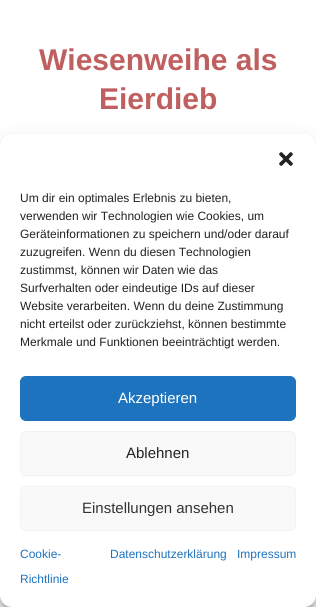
import math
import cairocffi as cairo

surface = cairo.ImageSurface(cairo.FORMAT_RGB24, 316, 607)
cr = cairo.Context(surface)
options = cairo.FontOptions()
options.set_hint_metrics(cairo.HINT_METRICS_OFF)
options.set_hint_style(cairo.HINT_STYLE_NONE)
cr.set_font_options(options)
cr.set_miter_limit(4)


def use_color(code):
    cr.set_source_rgb(*(v / 255 for v in bytes.fromhex(code[-6:])))


def round_rect(x, y, w, h, r):
    cr.new_sub_path()
    for i, (u, v) in enumerate([(x + w - r, y + h - r), (x + r, y + h - r), (x + r, y + r), (x + w - r, y + r)]):
        cr.arc(u, v, r, i * math.pi / 2, (i + 1) * math.pi / 2)
    cr.close_path()


def shadow(x, y, w, h, r, blur, alpha):
    cr.push_group_with_content(cairo.CONTENT_ALPHA)
    cr.set_operator(cairo.OPERATOR_SOURCE)
    for i in range(15, -16, -2):
        e = blur * i / 6
        if min(w, h) + 2 * e > 0:
            cr.set_source_rgba(0, 0, 0, alpha * math.erfc((i - 1) / 8.5) / 2)
            round_rect(x - e, y - e, w + 2 * e, h + 2 * e, max(0, min(r + e + blur * .6, min(w, h) / 2 + e)))
            cr.fill()
    cr.mask(cr.pop_group())


def picture(path, x, y, w, h):
    cr.save()
    cr.set_source_surface(cairo.ImageSurface.create_from_png(path), x, y)
    cr.rectangle(x, y, w, h)
    cr.fill()
    cr.restore()


use_color("#ffffff")
cr.paint()
cr.select_font_face("Liberation Sans", cairo.FONT_SLANT_NORMAL, cairo.FONT_WEIGHT_BOLD)
cr.set_font_size(30)
use_color("#c05f5f")
cr.move_to(39, 70)
cr.show_text("Wiesenweihe als")
cr.move_to(99, 109)
cr.show_text("Eierdieb")
use_color("#000000")
shadow(0, 140, 316, 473, 12, 3, 0.23)
shadow(0, 144, 316, 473, 12, 10, 0.19)
use_color("#ffffff")
round_rect(0, 134, 316, 473, 12)
cr.fill()
picture("img1.png", 279, 152, 14, 14)
cr.select_font_face("Liberation Sans")
cr.set_font_size(12)
use_color("#222222")
cr.move_to(20, 202)
cr.show_text("Um dir ein optimales Erlebnis zu bieten,")
cr.move_to(20, 220)
cr.show_text("verwenden wir Technologien wie Cookies, um")
cr.move_to(20, 238)
cr.show_text("Geräteinformationen zu speichern und/oder darauf")
cr.move_to(20, 256)
cr.show_text("zuzugreifen. Wenn du diesen Technologien")
cr.move_to(20, 274)
cr.show_text("zustimmst, können wir Daten wie das")
cr.move_to(20, 292)
cr.show_text("Surfverhalten oder eindeutige IDs auf dieser")
cr.move_to(20, 310)
cr.show_text("Website verarbeiten. Wenn du deine Zustimmung")
cr.move_to(20, 328)
cr.show_text("nicht erteilst oder zurückziehst, können bestimmte")
cr.move_to(20, 346)
cr.show_text("Merkmale und Funktionen beeinträchtigt werden.")
use_color("#1e73be")
round_rect(20.5, 376.5, 275, 44, 5.5)
cr.fill_preserve()
cr.set_line_width(1)
cr.stroke()
cr.set_font_size(15)
use_color("#ffffff")
cr.move_to(118, 403)
cr.show_text("Akzeptieren")
use_color("#f9f9f9")
round_rect(20.5, 431.5, 275, 44, 5.5)
cr.fill_preserve()
use_color("#f2f2f2")
cr.stroke()
use_color("#222222")
cr.move_to(126, 458)
cr.show_text("Ablehnen")
use_color("#f9f9f9")
round_rect(20.5, 486.5, 275, 44, 5.5)
cr.fill_preserve()
use_color("#f2f2f2")
cr.stroke()
use_color("#333333")
cr.move_to(82, 513)
cr.show_text("Einstellungen ansehen")
cr.set_font_size(12)
use_color("#1e73be")
cr.move_to(20, 558)
cr.show_text("Cookie-")
cr.move_to(20, 583)
cr.show_text("Richtlinie")
cr.move_to(110, 558)
cr.show_text("Datenschutzerklärung")
cr.move_to(237, 558)
cr.show_text("Impressum")
surface.write_to_png("result.png")
